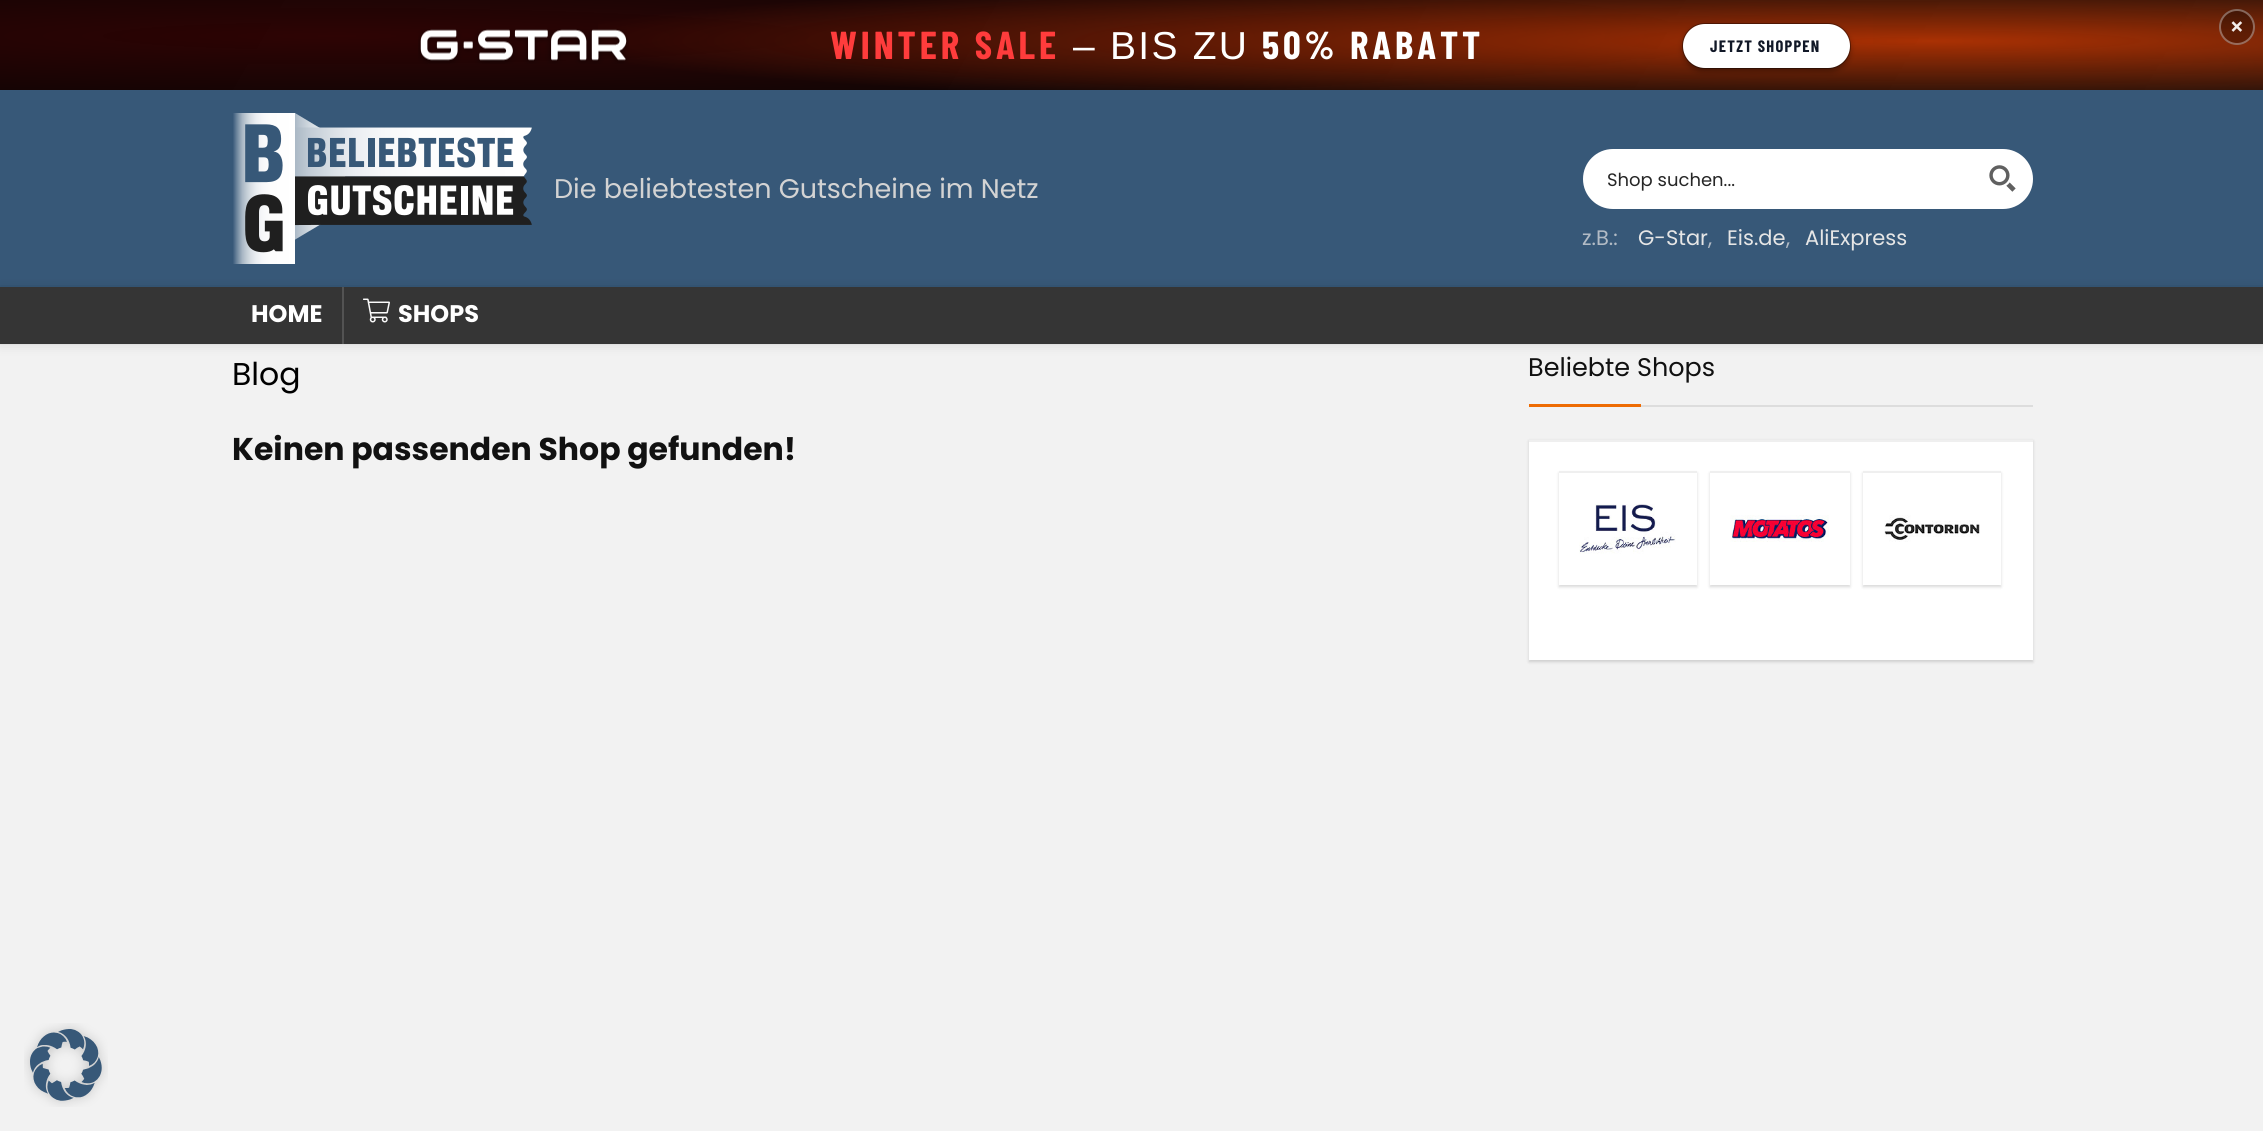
import math
import cairocffi as cairo

surface = cairo.ImageSurface(cairo.FORMAT_RGB24, 2263, 1131)
cr = cairo.Context(surface)
options = cairo.FontOptions()
options.set_hint_metrics(cairo.HINT_METRICS_OFF)
options.set_hint_style(cairo.HINT_STYLE_NONE)
cr.set_font_options(options)
cr.set_miter_limit(4)


def use_color(code):
    cr.set_source_rgb(*(v / 255 for v in bytes.fromhex(code[-6:])))


def spaced_text(x, y, s, letter, word):
    cr.move_to(x, y)
    for ch in s:
        cr.show_text(ch)
        cr.rel_move_to(letter + word * (ch == ' '), 0)


def round_rect(x, y, w, h, r):
    cr.new_sub_path()
    for i, (u, v) in enumerate([(x + w - r, y + h - r), (x + r, y + h - r), (x + r, y + r), (x + w - r, y + r)]):
        cr.arc(u, v, r, i * math.pi / 2, (i + 1) * math.pi / 2)
    cr.close_path()


def shadow(x, y, w, h, r, blur, alpha):
    cr.push_group_with_content(cairo.CONTENT_ALPHA)
    cr.set_operator(cairo.OPERATOR_SOURCE)
    for i in range(15, -16, -2):
        e = blur * i / 6
        if min(w, h) + 2 * e > 0:
            cr.set_source_rgba(0, 0, 0, alpha * math.erfc((i - 1) / 8.5) / 2)
            round_rect(x - e, y - e, w + 2 * e, h + 2 * e, max(0, min(r + e + blur * .6, min(w, h) / 2 + e)))
            cr.fill()
    cr.mask(cr.pop_group())


def picture(path, x, y, w, h):
    cr.save()
    cr.set_source_surface(cairo.ImageSurface.create_from_png(path), x, y)
    cr.rectangle(x, y, w, h)
    cr.fill()
    cr.restore()


use_color("#f2f2f2")
cr.paint()
gradient = cairo.LinearGradient(263, -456, 2000, 546)
gradient.add_color_stop_rgba(0, 0.02, 0.02, 0.02, 1)
gradient.add_color_stop_rgba(0.55, 0.027, 0.027, 0.027, 1)
gradient.add_color_stop_rgba(1, 0.043, 0.043, 0.043, 1)
cr.set_source(gradient)
cr.rectangle(0, 0, 2263, 90)
cr.fill()
gradient = cairo.RadialGradient(0, 0, 0, 0, 0, 1)
gradient.set_matrix(cairo.Matrix(1 / 2716, 0, 0, 1 / 162, -1 * 340 / 2716, -1 * 36 / 162))
gradient.add_color_stop_rgba(0, 0.471, 0, 0, 0.35)
gradient.add_color_stop_rgba(0.6, 0.471, 0, 0, 0)
cr.set_source(gradient)
cr.rectangle(0, 0, 1873, 90)
cr.fill()
gradient = cairo.RadialGradient(0, 0, 0, 0, 0, 1)
gradient.set_matrix(cairo.Matrix(1 / 2490, 0, 0, 1 / 126, -1 * 1924 / 2490, -1 * 41 / 126))
gradient.add_color_stop_rgba(0, 1, 0.271, 0, 0.65)
gradient.add_color_stop_rgba(0.55, 1, 0.271, 0, 0)
cr.set_source(gradient)
cr.rectangle(598, 0, 1665, 90)
cr.fill()
cr.set_source_rgba(0, 0, 0, 0.28)
cr.arc(2237, 27, 18, 0, 2 * math.pi)
cr.fill()
cr.arc(2237, 27, 17, 0, 2 * math.pi)
cr.set_source_rgba(1, 1, 1, 0.35)
cr.stroke()
cr.select_font_face("Noto Sans", cairo.FONT_SLANT_NORMAL, cairo.FONT_WEIGHT_BOLD)
cr.set_font_size(24)
use_color("#f2edeb")
cr.move_to(2230, 35)
cr.show_text("×")
picture("img1.png", 418, 29, 211, 35)
cr.select_font_face("Barlow Condensed", cairo.FONT_SLANT_NORMAL, cairo.FONT_WEIGHT_BOLD)
cr.set_font_size(39)
use_color("#ff3c3c")
spaced_text(830, 59, "WINTER SALE", 3.9, 0)
cr.select_font_face("Liberation Sans")
use_color("#ffffff")
spaced_text(1073, 59, "– BIS ZU", 2.25, 0)
cr.select_font_face("Barlow Condensed", cairo.FONT_SLANT_NORMAL, cairo.FONT_WEIGHT_BOLD)
spaced_text(1262, 59, "50% RABATT", 3.9, 0)
use_color("#000000")
shadow(1683, 27, 167, 44, 22, 3, 0.35)
round_rect(1683, 24, 167, 44, 22)
cr.set_source_rgba(0, 0, 0, 0.35)
cr.stroke()
use_color("#ffffff")
round_rect(1683, 24, 167, 44, 22)
cr.fill()
cr.set_font_size(16.5)
use_color("#111827")
spaced_text(1710, 52, "JETZT SHOPPEN", 1.25, 0)
use_color("#375878")
cr.rectangle(0, 90, 2263, 197)
cr.fill()
picture("img2.png", 233, 113, 299, 151)
cr.select_font_face("Poppins")
cr.set_font_size(27)
use_color("#d3d3d3")
cr.move_to(554, 198)
cr.show_text("Die beliebtesten Gutscheine im Netz")
use_color("#ffffff")
round_rect(1583, 149, 450, 60, 30)
cr.fill()
cr.set_font_size(18)
use_color("#262626")
cr.move_to(1607, 186)
cr.show_text("Shop suchen...")
picture("img3.png", 1989, 165, 27, 27)
cr.set_font_size(21)
use_color("#b2bbc5")
cr.move_to(1582, 245)
cr.show_text("z.B.:")
use_color("#e6e6e6")
cr.move_to(1638, 245)
cr.show_text("G-Star")
use_color("#b2bbc5")
cr.move_to(1708, 245)
cr.show_text(",")
use_color("#e6e6e6")
cr.move_to(1727, 245)
cr.show_text("Eis.de")
use_color("#b2bbc5")
cr.move_to(1786, 245)
cr.show_text(",")
use_color("#e6e6e6")
cr.move_to(1805, 245)
cr.show_text("AliExpress")
cr.rectangle(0, 286, 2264, 58)
cr.set_source_rgba(0, 0, 0, 0.03)
cr.stroke()
use_color("#000000")
shadow(0, 288, 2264, 57, 0, 6, 0.1)
use_color("#353535")
cr.rectangle(0, 287, 2263, 57)
cr.fill()
use_color("#535353")
cr.rectangle(342, 287, 2, 57)
cr.fill()
cr.select_font_face("Poppins", cairo.FONT_SLANT_NORMAL, cairo.FONT_WEIGHT_BOLD)
cr.set_font_size(24)
use_color("#ffffff")
cr.move_to(251, 322)
cr.show_text("HOME")
picture("img4.png", 363, 298, 27, 25)
cr.move_to(398, 322)
cr.show_text("SHOPS")
cr.select_font_face("Poppins")
cr.set_font_size(31.5)
use_color("#000000")
cr.move_to(232, 385)
cr.show_text("Blog")
cr.select_font_face("Poppins", cairo.FONT_SLANT_NORMAL, cairo.FONT_WEIGHT_BOLD)
use_color("#111111")
cr.move_to(232, 460)
cr.show_text("Keinen passenden Shop gefunden!")
use_color("#dddddd")
cr.rectangle(1641, 405, 392, 2)
cr.fill()
cr.select_font_face("Poppins")
cr.set_font_size(25.5)
use_color("#111111")
cr.move_to(1528, 376)
cr.show_text("Beliebte Shops")
use_color("#ee6c04")
cr.rectangle(1529, 404, 112, 3)
cr.fill()
use_color("#000000")
shadow(1529, 441, 504, 221, 0, 1.5, 0.15)
use_color("#ffffff")
cr.rectangle(1529, 442, 504, 218)
cr.fill()
use_color("#efefef")
cr.rectangle(1529, 440, 504, 2)
cr.fill()
use_color("#000000")
shadow(1559, 473, 138, 114, 0, 1.5, 0.15)
use_color("#ffffff")
cr.rectangle(1559, 473, 138, 112)
cr.fill()
use_color("#efefef")
cr.rectangle(1559, 471, 138, 2)
cr.fill()
picture("img5.png", 1579, 504, 97, 50)
use_color("#000000")
shadow(1710, 473, 140, 114, 0, 1.5, 0.15)
use_color("#ffffff")
cr.rectangle(1710, 473, 140, 112)
cr.fill()
use_color("#efefef")
cr.rectangle(1710, 471, 140, 2)
cr.fill()
picture("img6.png", 1730, 515, 99, 27)
cr.save()
cr.set_fill_rule(cairo.FILL_RULE_EVEN_ODD)
cr.new_path()
cr.move_to(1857, 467)
cr.line_to(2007, 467)
cr.line_to(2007, 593)
cr.line_to(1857, 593)
cr.close_path()
cr.move_to(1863, 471)
cr.line_to(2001, 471)
cr.line_to(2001, 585)
cr.line_to(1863, 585)
cr.close_path()
cr.clip()
use_color("#000000")
shadow(1863, 473, 138, 114, 0, 1.5, 0.15)
cr.restore()
cr.rectangle(1863, 471, 138, 2)
cr.fill()
picture("img7.png", 1884, 515, 96, 27)
picture("img8.png", 24, 1023, 84, 84)
surface.write_to_png("result.png")
